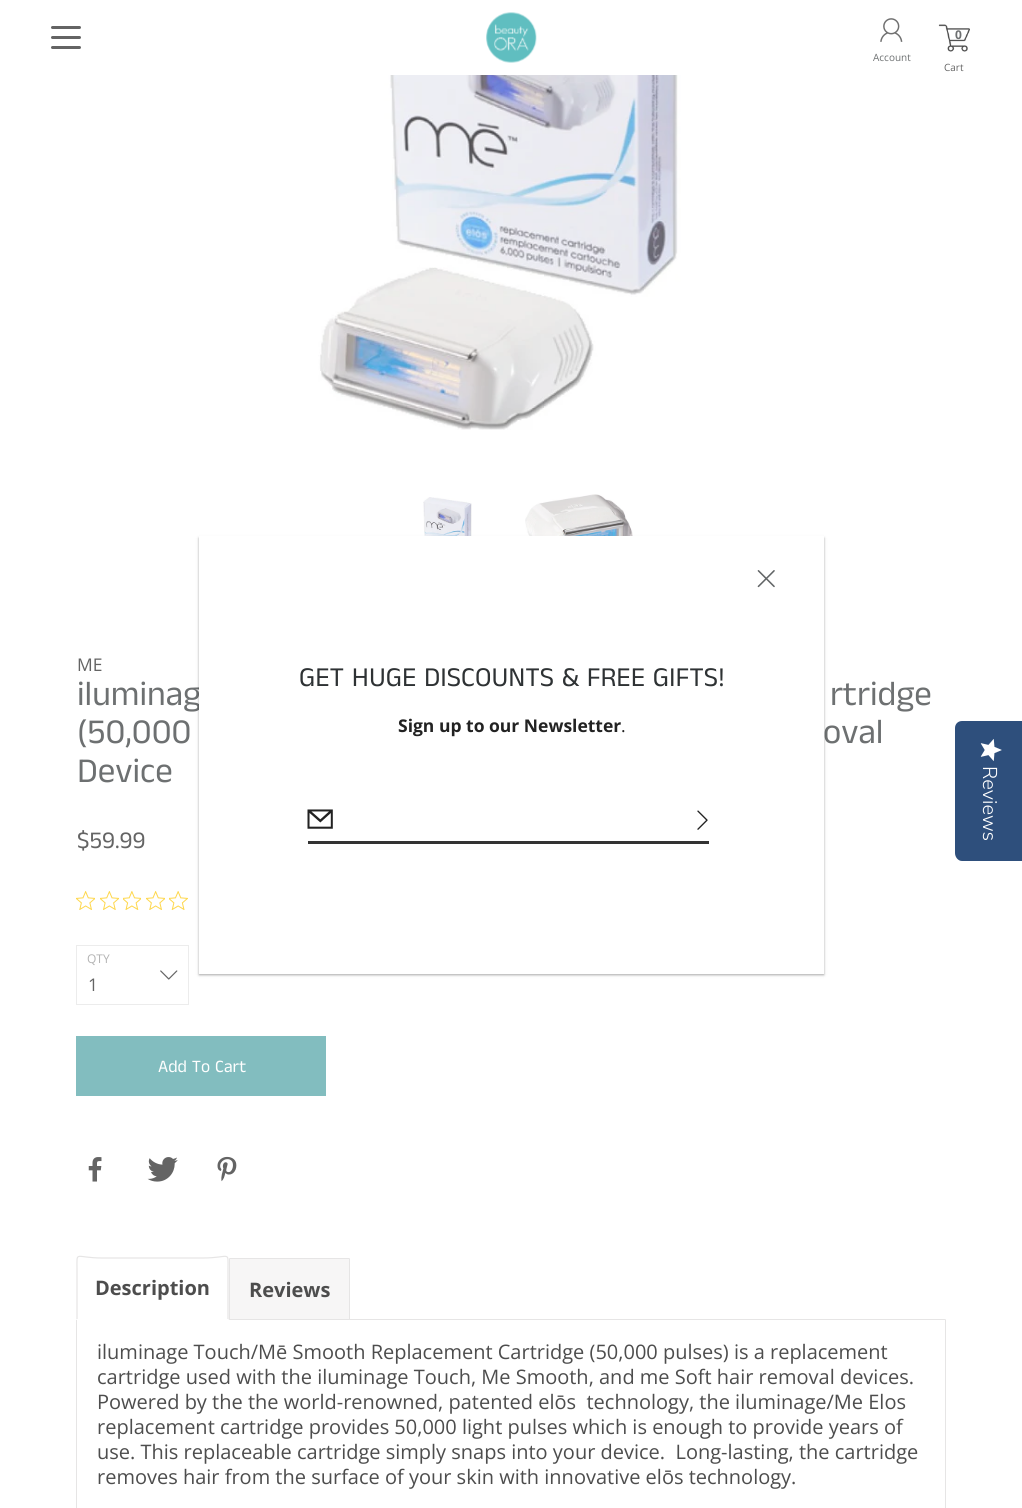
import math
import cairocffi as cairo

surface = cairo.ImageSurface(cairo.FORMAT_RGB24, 1022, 1508)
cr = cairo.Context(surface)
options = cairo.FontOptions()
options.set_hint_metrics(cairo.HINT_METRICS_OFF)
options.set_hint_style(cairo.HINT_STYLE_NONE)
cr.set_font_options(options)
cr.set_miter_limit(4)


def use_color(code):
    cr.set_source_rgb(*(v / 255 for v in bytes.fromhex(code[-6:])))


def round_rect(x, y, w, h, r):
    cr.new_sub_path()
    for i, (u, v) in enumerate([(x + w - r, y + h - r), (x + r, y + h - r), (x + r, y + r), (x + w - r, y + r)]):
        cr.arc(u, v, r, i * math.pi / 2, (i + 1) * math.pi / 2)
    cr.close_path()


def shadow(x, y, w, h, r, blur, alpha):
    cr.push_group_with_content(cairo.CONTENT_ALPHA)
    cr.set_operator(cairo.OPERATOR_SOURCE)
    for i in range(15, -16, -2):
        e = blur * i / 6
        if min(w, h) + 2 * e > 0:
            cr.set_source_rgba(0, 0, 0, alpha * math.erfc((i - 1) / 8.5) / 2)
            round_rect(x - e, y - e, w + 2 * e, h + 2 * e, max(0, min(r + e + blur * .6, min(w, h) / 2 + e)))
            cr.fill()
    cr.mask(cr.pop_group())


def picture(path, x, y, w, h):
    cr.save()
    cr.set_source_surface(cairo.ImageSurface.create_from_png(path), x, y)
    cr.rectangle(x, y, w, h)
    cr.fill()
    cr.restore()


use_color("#ffffff")
cr.paint()
picture("img1.png", 486, 12, 51, 51)
use_color("#646464")
round_rect(51, 36, 30, 3, 1.5)
cr.fill()
round_rect(51, 26, 30, 3, 1.5)
cr.fill()
round_rect(51, 46, 30, 3, 1.5)
cr.fill()
picture("img2.png", 880, 18, 23, 24)
cr.select_font_face("Open Sans")
cr.set_font_size(10)
use_color("#6d7071")
cr.move_to(873, 61)
cr.show_text("Account")
picture("img3.png", 938, 24, 32, 28)
cr.select_font_face("Open Sans", cairo.FONT_SLANT_NORMAL, cairo.FONT_WEIGHT_BOLD)
cr.set_font_size(12)
cr.move_to(955, 39)
cr.show_text("0")
cr.select_font_face("Open Sans")
cr.set_font_size(10)
use_color("#646464")
cr.move_to(944, 71)
cr.show_text("Cart")
picture("img4.png", 318, 75, 363, 355)
picture("img5.png", 412, 497, 60, 39)
picture("img6.png", 525, 494, 108, 42)
cr.set_font_size(17.5)
cr.move_to(77, 671)
cr.show_text("ME")
cr.select_font_face("Anek Tamil")
cr.set_font_size(35)
use_color("#6d7071")
cr.move_to(77, 705)
cr.show_text("iluminag")
cr.move_to(830, 705)
cr.show_text("rtridge")
cr.move_to(77, 743)
cr.show_text("(50,000")
cr.move_to(823, 743)
cr.show_text("oval")
cr.move_to(77, 782)
cr.show_text("Device")
cr.set_font_size(24)
use_color("#646464")
cr.move_to(77, 848)
cr.show_text("$59.99")
picture("img7.png", 76, 891, 19, 19)
picture("img8.png", 100, 891, 19, 19)
picture("img9.png", 123, 891, 18, 19)
picture("img7.png", 146, 891, 19, 19)
picture("img10.png", 169, 891, 19, 19)
cr.select_font_face("Open Sans")
cr.set_font_size(12)
use_color("#b2b2b2")
cr.move_to(87, 963)
cr.show_text("QTY")
cr.rectangle(76.5, 945.5, 112, 59)
use_color("#ececec")
cr.set_line_width(1)
cr.stroke()
picture("img11.png", 160, 970, 18, 10)
cr.set_font_size(17.5)
use_color("#646464")
cr.move_to(88, 991)
cr.show_text("1")
use_color("#82bdbf")
cr.rectangle(76, 1036, 250, 60)
cr.fill()
cr.select_font_face("Anek Tamil")
use_color("#ffffff")
cr.move_to(158, 1072)
cr.show_text("Add To Cart")
picture("img12.png", 88, 1157, 14, 25)
picture("img13.png", 147, 1157, 31, 25)
picture("img14.png", 217, 1156, 20, 26)
round_rect(76.5, 1319.5, 869, 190, 0.5)
use_color("#e6e5e5")
cr.stroke()
use_color("#ffffff")
round_rect(76, 1258, 153, 62, 1)
cr.fill()
cr.new_path()
cr.move_to(77, 1319)
cr.line_to(77, 1269)
cr.curve_to(77, 1250, 74.5, 1258, 102.5, 1258)
cr.line_to(202.5, 1258)
cr.curve_to(230.5, 1258, 228, 1250, 228, 1269)
cr.line_to(228, 1319)
use_color("#e6e5e5")
cr.set_line_width(1.2)
cr.stroke()
cr.select_font_face("Open Sans", cairo.FONT_SLANT_NORMAL, cairo.FONT_WEIGHT_BOLD)
cr.set_font_size(20)
use_color("#4d4d4d")
cr.move_to(95, 1295)
cr.show_text("Description")
use_color("#f7f6f6")
round_rect(229.5, 1258.5, 120, 61, 0.5)
cr.fill_preserve()
use_color("#e6e5e5")
cr.set_line_width(1)
cr.stroke()
use_color("#4d4d4d")
cr.move_to(249, 1297)
cr.show_text("Reviews")
cr.select_font_face("Open Sans")
cr.move_to(97, 1359)
cr.show_text("iluminage Touch/Mē Smooth Replacement Cartridge (50,000 pulses) is a replacement")
cr.move_to(97, 1384)
cr.show_text("cartridge used with the iluminage Touch, Me Smooth, and me Soft hair removal devices.")
cr.move_to(97, 1409)
cr.show_text("Powered by the the world-renowned, patented elōs  technology, the iluminage/Me Elos")
cr.move_to(97, 1434)
cr.show_text("replacement cartridge provides 50,000 light pulses which is enough to provide years of")
cr.move_to(97, 1459)
cr.show_text("use. This replaceable cartridge simply snaps into your device.  Long-lasting, the cartridge")
cr.move_to(97, 1484)
cr.show_text("removes hair from the surface of your skin with innovative elōs technology.")
use_color("#000000")
shadow(199, 538, 625, 437, 0, 1, 0.24)
shadow(199, 538, 625, 437, 0, 2, 0.12)
use_color("#ffffff")
cr.rectangle(199, 536, 625, 438)
cr.fill()
picture("img15.png", 757, 570, 18, 18)
cr.select_font_face("Anek Tamil")
cr.set_font_size(27.5)
use_color("#2e3234")
cr.move_to(299, 686)
cr.show_text("GET HUGE DISCOUNTS & FREE GIFTS!")
cr.select_font_face("Open Sans", cairo.FONT_SLANT_NORMAL, cairo.FONT_WEIGHT_BOLD)
cr.set_font_size(17.5)
use_color("#222222")
cr.move_to(398, 732)
cr.show_text("Sign up to our Newsletter")
cr.select_font_face("Open Sans")
cr.move_to(621, 732)
cr.show_text(".")
use_color("#333333")
cr.rectangle(308, 841, 401, 3)
cr.fill()
picture("img16.png", 307, 809, 26, 20)
picture("img17.png", 697, 810, 11, 20)
use_color("#2e4f7c")
cr.new_path()
cr.move_to(1022, 721)
cr.line_to(1022, 861)
cr.line_to(962, 861)
cr.curve_to(958, 861, 955, 857, 955, 853)
cr.line_to(955, 728)
cr.curve_to(955, 724, 958, 721, 962, 721)
cr.close_path()
cr.fill()
picture("img18.png", 980, 739, 22, 22)
cr.select_font_face("Nunito Sans Light")
cr.set_font_size(20)
use_color("#ffffff")
cr.save()
cr.translate(983, 766)
cr.rotate(90 * math.pi / 180)
cr.move_to(0, 0)
cr.show_text("Reviews")
cr.restore()
surface.write_to_png("result.png")
